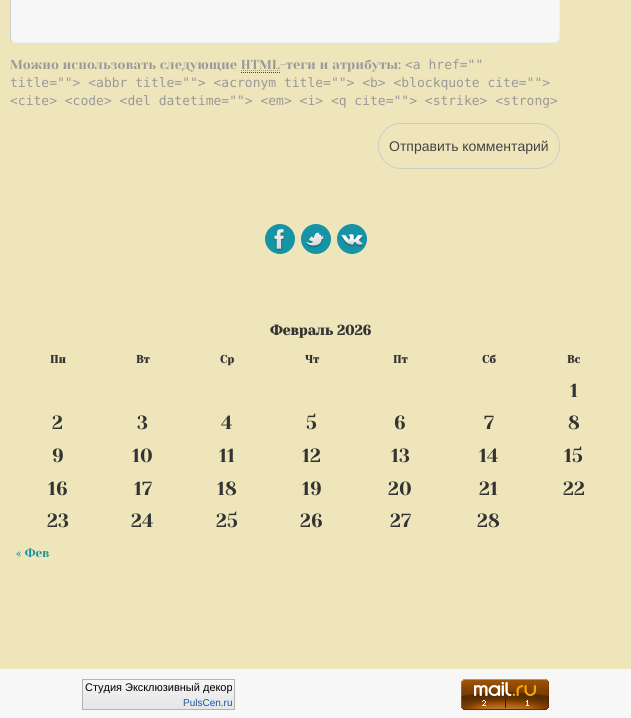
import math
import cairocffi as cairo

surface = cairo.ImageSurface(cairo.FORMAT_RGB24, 631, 718)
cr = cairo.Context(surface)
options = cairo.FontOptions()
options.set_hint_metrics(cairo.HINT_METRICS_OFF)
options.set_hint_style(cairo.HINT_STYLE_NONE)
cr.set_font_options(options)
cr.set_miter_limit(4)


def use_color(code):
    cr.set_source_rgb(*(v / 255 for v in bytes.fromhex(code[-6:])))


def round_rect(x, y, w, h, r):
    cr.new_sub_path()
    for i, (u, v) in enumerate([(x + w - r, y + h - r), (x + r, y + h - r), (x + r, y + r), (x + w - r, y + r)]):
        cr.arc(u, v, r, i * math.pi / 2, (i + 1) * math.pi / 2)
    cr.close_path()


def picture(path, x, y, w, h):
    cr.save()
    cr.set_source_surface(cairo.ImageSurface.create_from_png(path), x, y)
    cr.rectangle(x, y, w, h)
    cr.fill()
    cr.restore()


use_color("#eee5bb")
cr.paint()
use_color("#f7f7f7")
round_rect(10, -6, 550, 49, 6)
cr.fill()
cr.new_path()
cr.move_to(558, -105)
cr.curve_to(559, -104, 559.5, -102.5, 559.5, -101)
cr.line_to(559.5, 37)
cr.curve_to(559.5, 38.5, 559, 40, 558, 41)
cr.curve_to(557, 42, 555.5, 42.5, 554, 42.5)
cr.line_to(16, 42.5)
cr.curve_to(14.5, 42.5, 13, 42, 12, 41)
use_color("#eeeeee")
cr.set_line_width(1)
cr.stroke()
cr.new_path()
cr.move_to(12, 41)
cr.curve_to(11, 40, 10.5, 38.5, 10.5, 37)
cr.line_to(10.5, -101)
cr.curve_to(10.5, -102.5, 11, -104, 12, -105)
cr.curve_to(13, -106, 14.5, -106.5, 16, -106.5)
cr.line_to(554, -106.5)
cr.curve_to(555.5, -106.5, 557, -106, 558, -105)
use_color("#cccccc")
cr.stroke()
cr.select_font_face("Yeseva One")
cr.set_font_size(13)
use_color("#999999")
cr.move_to(10, 69)
cr.show_text("Можно использовать следующие HTML-теги и атрибуты:")
cr.select_font_face("DejaVu Sans Mono")
cr.move_to(405, 69)
cr.show_text("<a href=\"\"")
cr.new_path()
cr.move_to(241, 70.5)
cr.line_to(279.5, 70.5)
cr.set_dash([1, 1])
cr.stroke()
cr.new_path()
cr.move_to(241, 72.5)
cr.line_to(280, 72.5)
use_color("#444444")
cr.stroke()
use_color("#999999")
cr.move_to(10, 87)
cr.show_text("title=\"\"> <abbr title=\"\"> <acronym title=\"\"> <b> <blockquote cite=\"\">")
cr.move_to(10, 105)
cr.show_text("<cite> <code> <del datetime=\"\"> <em> <i> <q cite=\"\"> <strike> <strong>")
round_rect(378.5, 123.5, 181, 45, 22.5)
use_color("#cccccc")
cr.set_dash([])
cr.stroke()
cr.select_font_face("Liberation Sans")
cr.set_font_size(14)
use_color("#444444")
cr.move_to(389, 151)
cr.show_text("Отправить комментарий")
use_color("#1693a5")
cr.new_path()
cr.arc(280, 239, 15, 0, 2 * math.pi)
cr.fill()
picture("img1.png", 273, 229, 12, 22)
cr.arc(316, 239, 15, 0, 2 * math.pi)
cr.fill()
picture("img2.png", 306, 232, 18, 16)
cr.arc(352, 239, 15, 0, 2 * math.pi)
cr.fill()
picture("img3.png", 340, 234, 24, 13)
cr.select_font_face("Yeseva One", cairo.FONT_SLANT_NORMAL, cairo.FONT_WEIGHT_BOLD)
use_color("#333333")
cr.move_to(270, 335)
cr.show_text("Февраль 2026")
cr.set_font_size(11)
cr.move_to(50, 363)
cr.show_text("Пн")
cr.move_to(136, 363)
cr.show_text("Вт")
cr.move_to(220, 363)
cr.show_text("Ср")
cr.move_to(305, 363)
cr.show_text("Чт")
cr.move_to(393, 363)
cr.show_text("Пт")
cr.move_to(482, 363)
cr.show_text("Сб")
cr.move_to(567, 363)
cr.show_text("Вс")
cr.select_font_face("Yeseva One")
cr.set_font_size(19)
cr.move_to(570, 397)
cr.show_text("1")
cr.move_to(52, 429)
cr.show_text("2")
cr.move_to(137, 429)
cr.show_text("3")
cr.move_to(221, 429)
cr.show_text("4")
cr.move_to(306, 429)
cr.show_text("5")
cr.move_to(394, 429)
cr.show_text("6")
cr.move_to(484, 429)
cr.show_text("7")
cr.move_to(568, 429)
cr.show_text("8")
cr.move_to(52, 462)
cr.show_text("9")
cr.move_to(132, 462)
cr.show_text("10")
cr.move_to(219, 462)
cr.show_text("11")
cr.move_to(302, 462)
cr.show_text("12")
cr.move_to(391, 462)
cr.show_text("13")
cr.move_to(479, 462)
cr.show_text("14")
cr.move_to(564, 462)
cr.show_text("15")
cr.move_to(48, 495)
cr.show_text("16")
cr.move_to(134, 495)
cr.show_text("17")
cr.move_to(217, 495)
cr.show_text("18")
cr.move_to(302, 495)
cr.show_text("19")
cr.move_to(388, 495)
cr.show_text("20")
cr.move_to(479, 495)
cr.show_text("21")
cr.move_to(563, 495)
cr.show_text("22")
cr.move_to(47, 527)
cr.show_text("23")
cr.move_to(131, 527)
cr.show_text("24")
cr.move_to(216, 527)
cr.show_text("25")
cr.move_to(300, 527)
cr.show_text("26")
cr.move_to(390, 527)
cr.show_text("27")
cr.move_to(477, 527)
cr.show_text("28")
cr.set_font_size(12)
use_color("#1693a5")
cr.move_to(16, 557)
cr.show_text("« Фев")
use_color("#f7f7f7")
cr.rectangle(0, 669, 631, 49)
cr.fill()
picture("img4.png", 83, 680, 151, 29)
cr.rectangle(82.5, 679.5, 152, 30)
use_color("#b4b4b4")
cr.stroke()
cr.select_font_face("Liberation Sans")
cr.set_font_size(11)
use_color("#000000")
cr.move_to(85, 691)
cr.show_text("Студия Эксклюзивный декор")
cr.set_font_size(10)
use_color("#1c53a2")
cr.move_to(183, 706)
cr.show_text("PulsCen.ru")
picture("img5.png", 461, 679, 88, 31)
surface.write_to_png("result.png")
